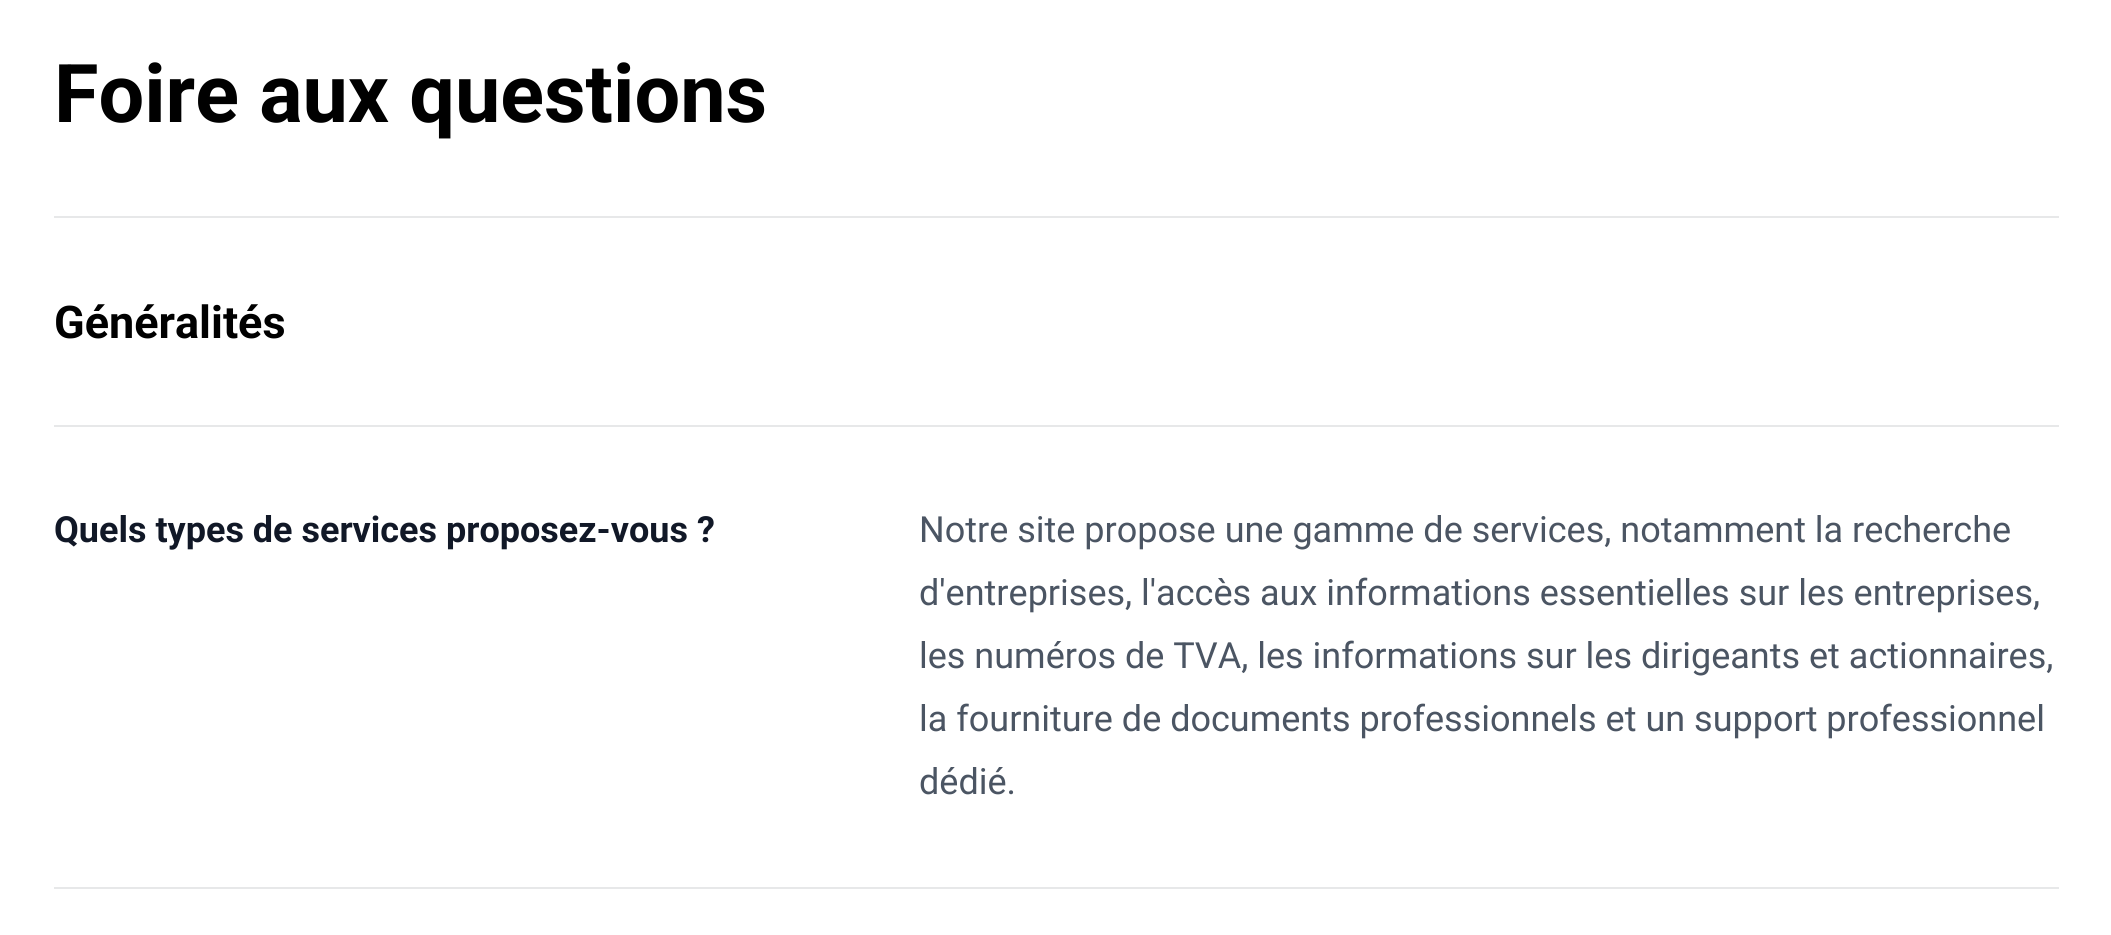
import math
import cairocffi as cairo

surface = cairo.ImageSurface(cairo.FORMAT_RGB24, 2111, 935)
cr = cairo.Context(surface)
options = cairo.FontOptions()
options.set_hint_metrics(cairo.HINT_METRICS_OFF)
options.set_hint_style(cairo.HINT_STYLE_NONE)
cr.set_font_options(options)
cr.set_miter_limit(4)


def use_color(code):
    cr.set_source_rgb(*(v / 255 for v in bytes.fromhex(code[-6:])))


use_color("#ffffff")
cr.paint()
cr.select_font_face("Roboto", cairo.FONT_SLANT_NORMAL, cairo.FONT_WEIGHT_BOLD)
cr.set_font_size(81)
use_color("#000000")
cr.move_to(54, 122)
cr.show_text("Foire aux questions")
use_color("#e7e8e9")
cr.rectangle(54, 216, 2005, 2)
cr.fill()
cr.set_font_size(45)
use_color("#000000")
cr.move_to(54, 338)
cr.show_text("Généralités")
use_color("#e7e8e9")
cr.rectangle(54, 425, 2005, 2)
cr.fill()
cr.set_font_size(36)
use_color("#111827")
cr.move_to(54, 542)
cr.show_text("Quels types de services proposez-vous ?")
cr.select_font_face("Roboto")
use_color("#4b5563")
cr.move_to(919, 542)
cr.show_text("Notre site propose une gamme de services, notamment la recherche")
cr.move_to(919, 605)
cr.show_text("d'entreprises, l'accès aux informations essentielles sur les entreprises,")
cr.move_to(919, 668)
cr.show_text("les numéros de TVA, les informations sur les dirigeants et actionnaires,")
cr.move_to(919, 731)
cr.show_text("la fourniture de documents professionnels et un support professionnel")
cr.move_to(919, 794)
cr.show_text("dédié.")
use_color("#e7e8e9")
cr.rectangle(54, 887, 2005, 2)
cr.fill()
surface.write_to_png("result.png")
